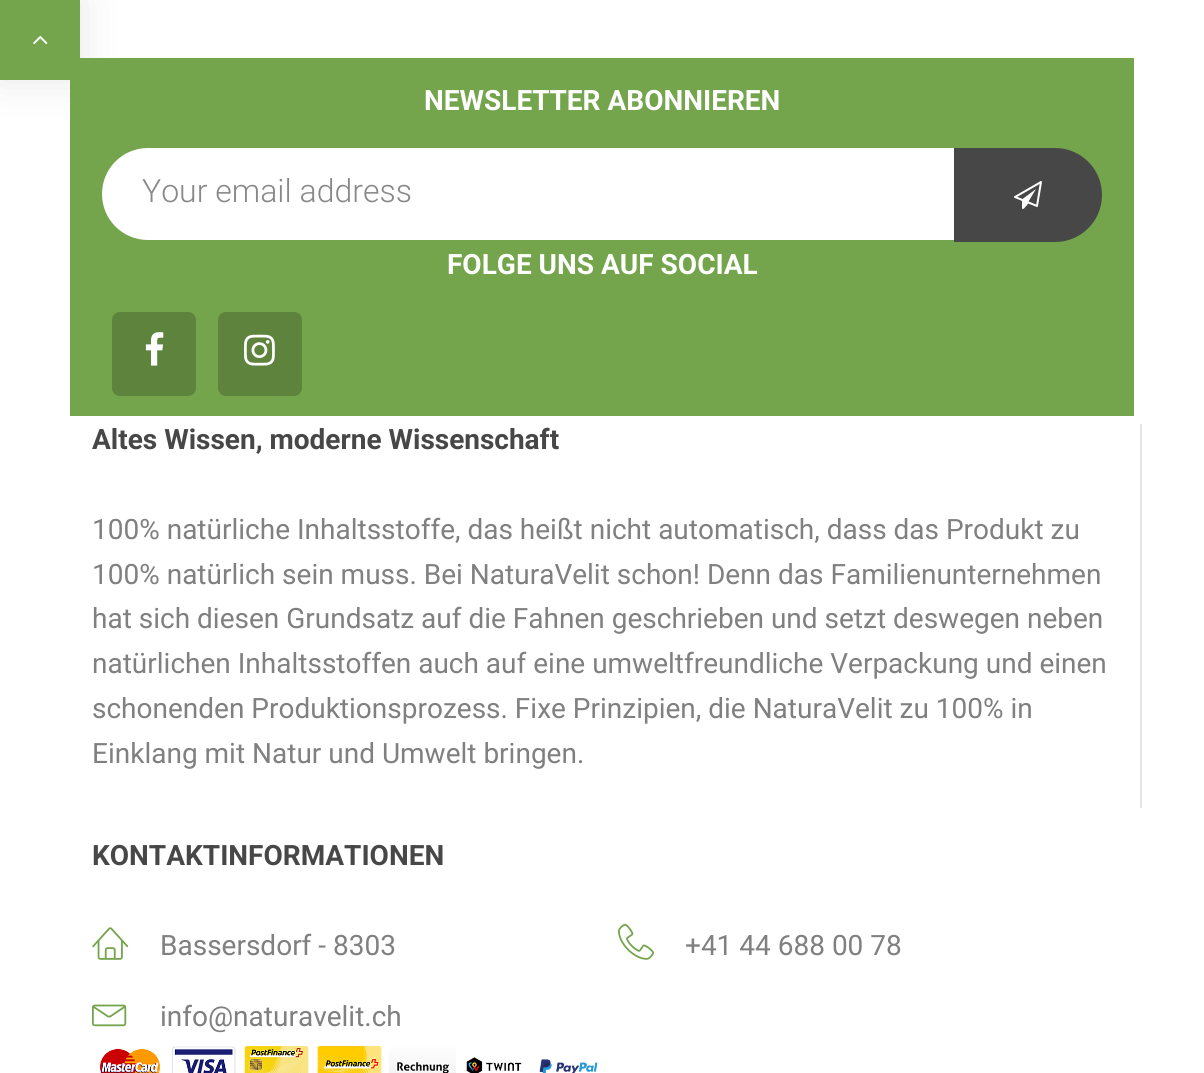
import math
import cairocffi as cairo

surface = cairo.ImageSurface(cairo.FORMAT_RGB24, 1204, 1073)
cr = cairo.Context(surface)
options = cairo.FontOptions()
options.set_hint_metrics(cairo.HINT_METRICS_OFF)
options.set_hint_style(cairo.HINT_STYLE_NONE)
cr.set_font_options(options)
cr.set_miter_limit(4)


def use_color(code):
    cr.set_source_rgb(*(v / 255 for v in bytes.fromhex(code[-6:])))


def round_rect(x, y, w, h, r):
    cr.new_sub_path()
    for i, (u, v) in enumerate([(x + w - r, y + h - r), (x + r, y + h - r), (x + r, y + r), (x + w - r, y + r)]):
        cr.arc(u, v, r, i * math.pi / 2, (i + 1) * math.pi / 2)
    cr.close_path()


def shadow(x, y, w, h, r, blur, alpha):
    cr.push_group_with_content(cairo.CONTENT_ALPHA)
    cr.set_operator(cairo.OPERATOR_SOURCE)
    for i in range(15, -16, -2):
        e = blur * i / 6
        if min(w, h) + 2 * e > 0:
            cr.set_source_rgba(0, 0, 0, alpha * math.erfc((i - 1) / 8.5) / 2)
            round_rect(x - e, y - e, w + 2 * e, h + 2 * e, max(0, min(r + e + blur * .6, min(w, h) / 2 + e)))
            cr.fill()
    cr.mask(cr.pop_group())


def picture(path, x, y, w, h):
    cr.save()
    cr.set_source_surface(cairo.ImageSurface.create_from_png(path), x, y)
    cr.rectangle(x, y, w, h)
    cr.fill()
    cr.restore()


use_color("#ffffff")
cr.paint()
use_color("#000000")
shadow(0, 0, 80, 80, 0, 20, 0.1)
use_color("#74a44c")
cr.rectangle(0, 0, 80, 80)
cr.fill()
picture("img1.png", 33, 35, 15, 10)
cr.rectangle(70, 58, 1064, 358)
cr.fill()
cr.select_font_face("Roboto", cairo.FONT_SLANT_NORMAL, cairo.FONT_WEIGHT_BOLD)
cr.set_font_size(28)
use_color("#ffffff")
cr.move_to(424, 110)
cr.show_text("NEWSLETTER ABONNIEREN")
cr.new_path()
cr.move_to(148, 148)
cr.line_to(954, 148)
cr.line_to(954, 240)
cr.line_to(148, 240)
cr.curve_to(122.5, 240, 102, 219.5, 102, 194)
cr.curve_to(102, 168.5, 122.5, 148, 148, 148)
cr.close_path()
cr.fill()
cr.select_font_face("Roboto Light")
cr.set_font_size(32)
use_color("#888888")
cr.move_to(142, 202)
cr.show_text("Your email address")
use_color("#474747")
cr.new_path()
cr.move_to(954, 148)
cr.line_to(1055, 148)
cr.curve_to(1081, 148, 1102, 169, 1102, 195)
cr.curve_to(1102, 221, 1081, 242, 1055, 242)
cr.line_to(954, 242)
cr.close_path()
cr.fill()
picture("img2.png", 1014, 181, 28, 28)
cr.select_font_face("Roboto", cairo.FONT_SLANT_NORMAL, cairo.FONT_WEIGHT_BOLD)
cr.set_font_size(28)
use_color("#ffffff")
cr.move_to(447, 274)
cr.show_text("FOLGE UNS AUF SOCIAL")
use_color("#5d833d")
round_rect(112, 312, 84, 84, 8)
cr.fill()
picture("img3.png", 145, 332, 19, 34)
round_rect(218, 312, 84, 84, 8)
cr.fill()
picture("img4.png", 244, 334, 31, 32)
use_color("#e5e5e5")
cr.rectangle(1140, 424, 2, 384)
cr.fill()
use_color("#474747")
cr.move_to(92, 449)
cr.show_text("Altes Wissen, moderne Wissenschaft")
cr.select_font_face("Roboto")
use_color("#808080")
cr.move_to(92, 539)
cr.show_text("100% natürliche Inhaltsstoffe, das heißt nicht automatisch, dass das Produkt zu")
cr.move_to(92, 584)
cr.show_text("100% natürlich sein muss. Bei NaturaVelit schon! Denn das Familienunternehmen")
cr.move_to(92, 628)
cr.show_text("hat sich diesen Grundsatz auf die Fahnen geschrieben und setzt deswegen neben")
cr.move_to(92, 673)
cr.show_text("natürlichen Inhaltsstoffen auch auf eine umweltfreundliche Verpackung und einen")
cr.move_to(92, 718)
cr.show_text("schonenden Produktionsprozess. Fixe Prinzipien, die NaturaVelit zu 100% in")
cr.move_to(92, 763)
cr.show_text("Einklang mit Natur und Umwelt bringen.")
cr.select_font_face("Roboto", cairo.FONT_SLANT_NORMAL, cairo.FONT_WEIGHT_BOLD)
use_color("#474747")
cr.move_to(92, 865)
cr.show_text("KONTAKTINFORMATIONEN")
picture("img5.png", 92, 927, 37, 33)
cr.select_font_face("Roboto")
use_color("#808080")
cr.move_to(160, 955)
cr.show_text("Bassersdorf - 8303")
picture("img6.png", 618, 923, 36, 37)
cr.move_to(685, 955)
cr.show_text("+41 44 688 00 78")
picture("img7.png", 92, 1004, 35, 23)
cr.move_to(160, 1026)
cr.show_text("info@naturavelit.ch")
picture("img8.png", 100, 1046, 498, 27)
surface.write_to_png("result.png")
